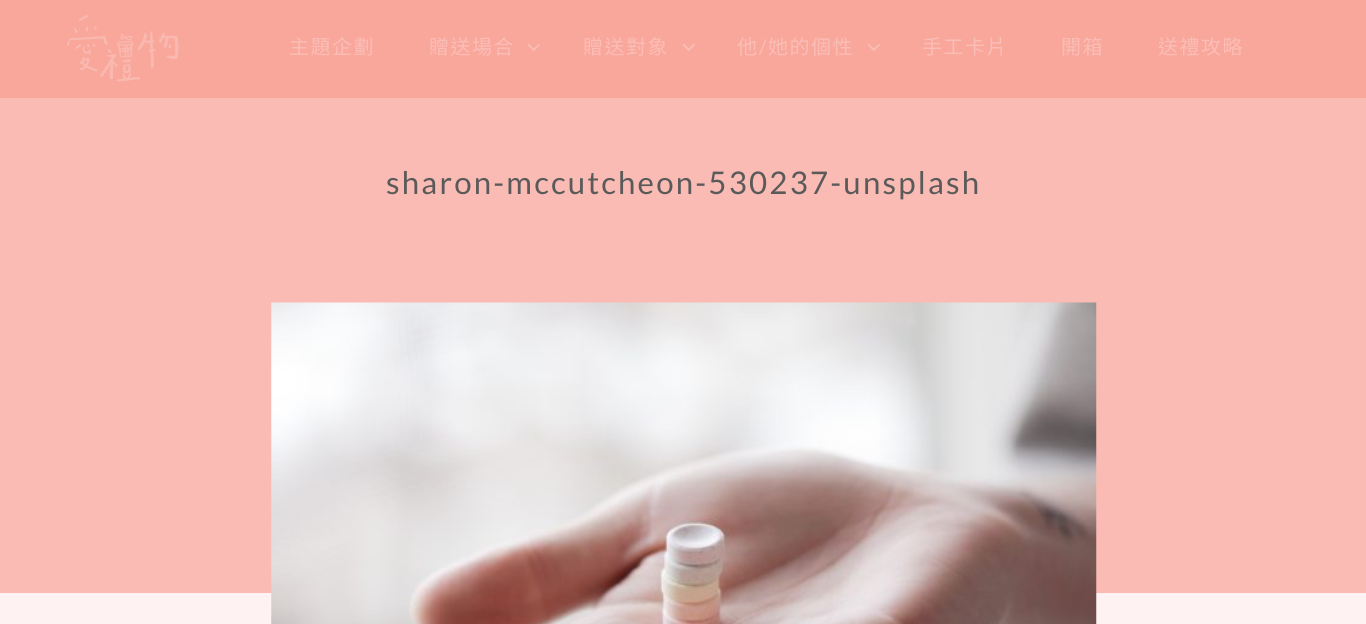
import math
import cairocffi as cairo

surface = cairo.ImageSurface(cairo.FORMAT_RGB24, 1366, 624)
cr = cairo.Context(surface)
options = cairo.FontOptions()
options.set_hint_metrics(cairo.HINT_METRICS_OFF)
options.set_hint_style(cairo.HINT_STYLE_NONE)
cr.set_font_options(options)
cr.set_miter_limit(4)


def use_color(code):
    cr.set_source_rgb(*(v / 255 for v in bytes.fromhex(code[-6:])))


def spaced_text(x, y, s, letter, word):
    cr.move_to(x, y)
    for ch in s:
        cr.show_text(ch)
        cr.rel_move_to(letter + word * (ch == ' '), 0)


def picture(path, x, y, w, h):
    cr.save()
    cr.set_source_surface(cairo.ImageSurface.create_from_png(path), x, y)
    cr.rectangle(x, y, w, h)
    cr.fill()
    cr.restore()


use_color("#fff2f2")
cr.paint()
use_color("#fabbb4")
cr.rectangle(0, 98, 1366, 495)
cr.fill()
use_color("#f9a69b")
cr.rectangle(0, 0, 1366, 98)
cr.fill()
picture("img1.png", 67, 15, 112, 67)
cr.select_font_face("Noto Sans CJK TC")
cr.set_font_size(20)
use_color("#fabeb7")
spaced_text(289, 54, "主題企劃", 1.5, 0)
spaced_text(429, 54, "贈送場合", 1.5, 0)
picture("img2.png", 527, 43, 13, 9)
spaced_text(583, 54, "贈送對象", 1.5, 0)
picture("img2.png", 682, 43, 13, 9)
spaced_text(737, 54, "他", 1.5, 0)
cr.select_font_face("Lato")
spaced_text(759, 54, "/", 1.5, 0)
cr.select_font_face("Noto Sans CJK TC")
spaced_text(768, 54, "她的個性", 1.5, 0)
picture("img2.png", 867, 43, 13, 9)
spaced_text(922, 54, "手工卡片", 1.5, 0)
spaced_text(1061, 54, "開箱", 1.5, 0)
spaced_text(1158, 54, "送禮攻略", 1.5, 0)
cr.select_font_face("Lato")
cr.set_font_size(31.25)
use_color("#5b5a5a")
spaced_text(386, 194, "sharon-mccutcheon-530237-unsplash", 2.2, 0)
picture("img3.png", 271, 302, 826, 322)
surface.write_to_png("result.png")
